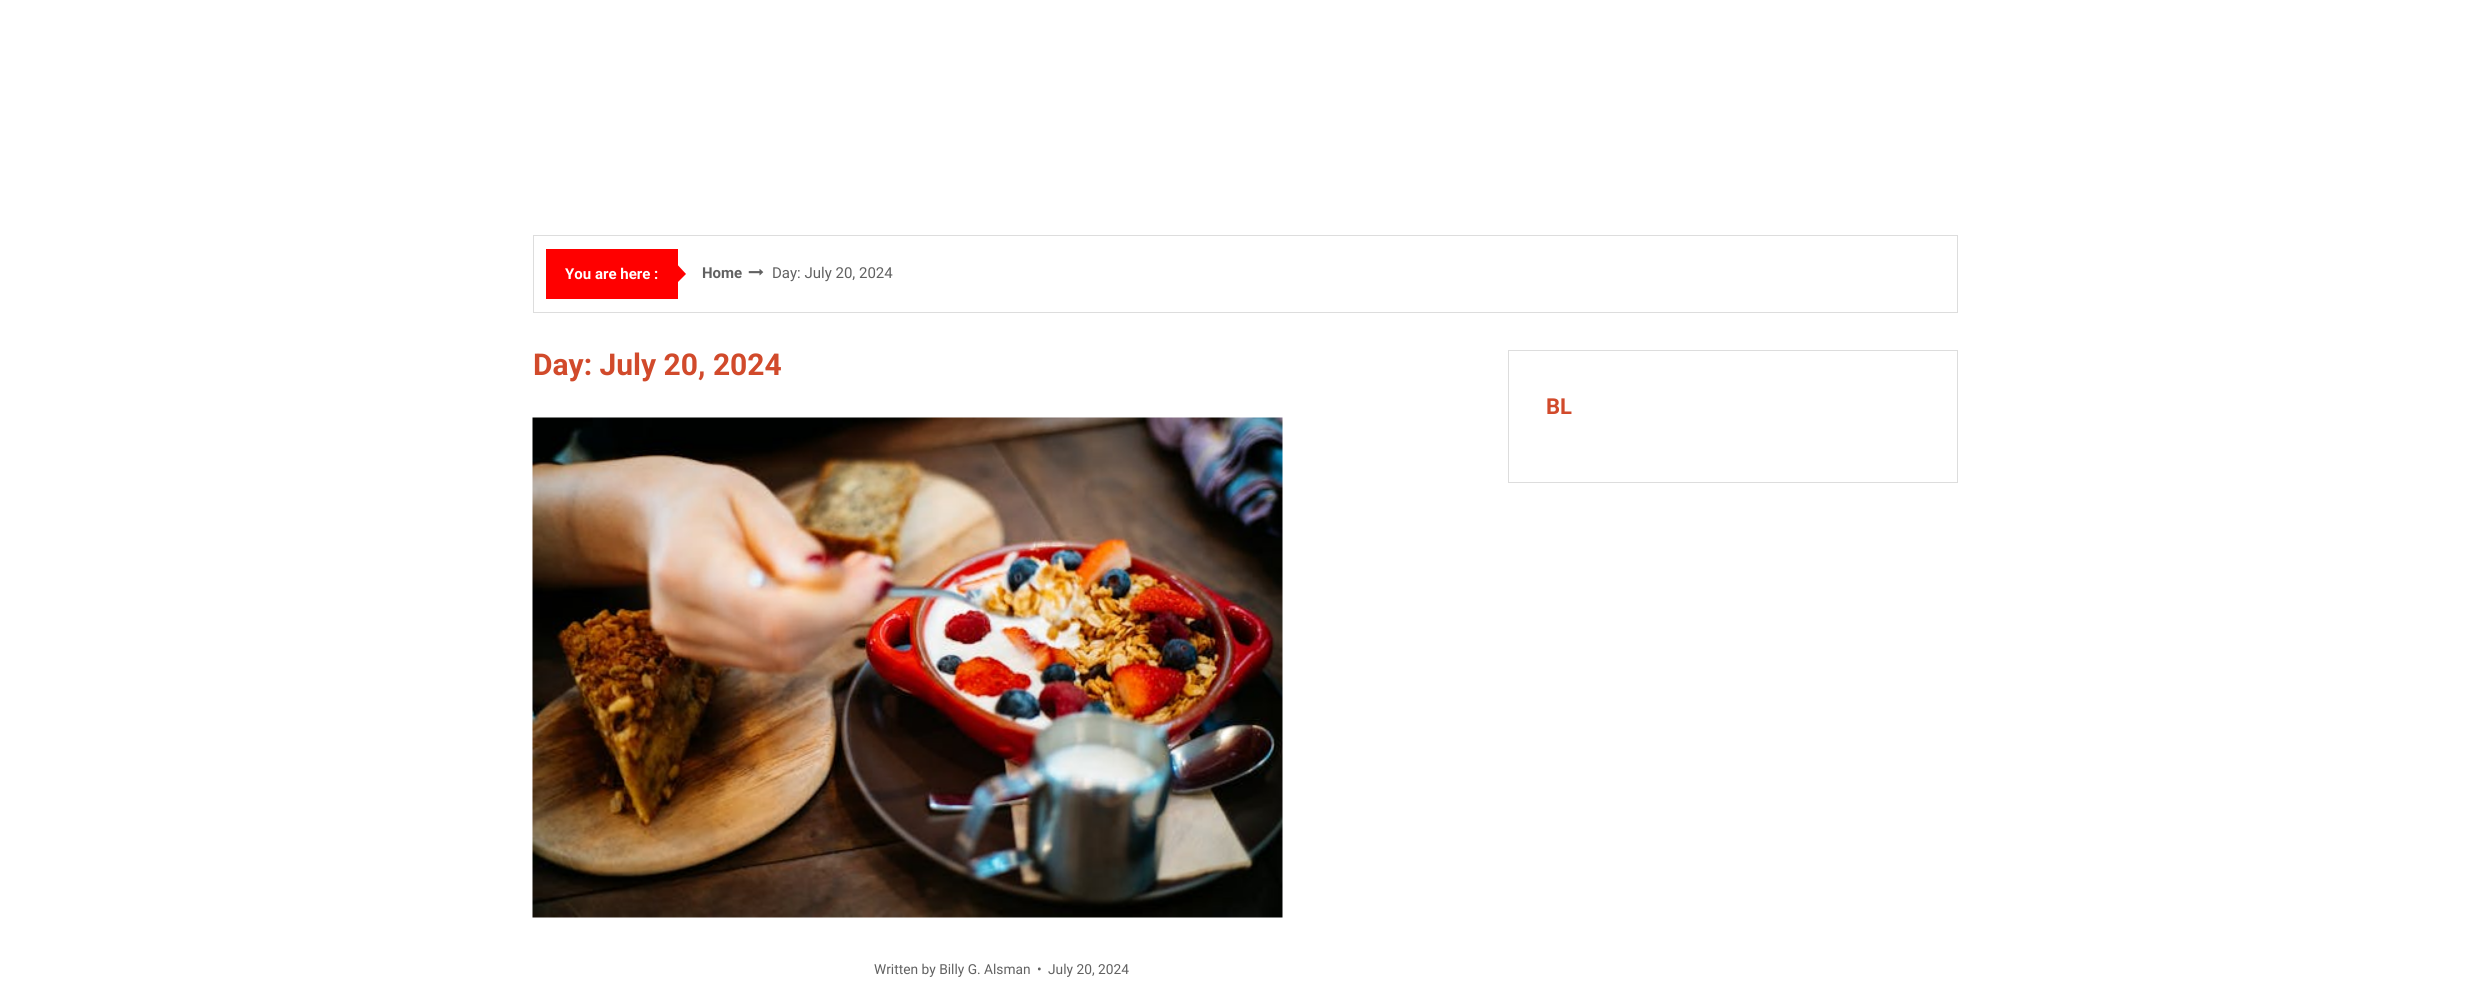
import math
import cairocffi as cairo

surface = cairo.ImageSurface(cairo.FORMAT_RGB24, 2490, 1003)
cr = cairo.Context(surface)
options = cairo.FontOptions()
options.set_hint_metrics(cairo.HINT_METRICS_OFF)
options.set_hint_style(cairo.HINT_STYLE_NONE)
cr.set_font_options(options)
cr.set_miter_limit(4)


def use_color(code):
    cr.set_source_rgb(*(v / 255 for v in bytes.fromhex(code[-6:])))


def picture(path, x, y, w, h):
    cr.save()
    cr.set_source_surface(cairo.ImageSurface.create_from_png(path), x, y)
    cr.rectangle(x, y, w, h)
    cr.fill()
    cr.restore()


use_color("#ffffff")
cr.paint()
cr.rectangle(533.5, 235.5, 1424, 77)
use_color("#dddddd")
cr.set_line_width(1)
cr.stroke()
use_color("#ff0000")
cr.rectangle(546, 249, 132, 50)
cr.fill()
cr.select_font_face("Roboto", cairo.FONT_SLANT_NORMAL, cairo.FONT_WEIGHT_BOLD)
cr.set_font_size(15)
use_color("#ffffff")
cr.move_to(565, 279)
cr.show_text("You are here :")
use_color("#ff0000")
cr.new_path()
cr.move_to(674, 286)
cr.line_to(674, 261)
cr.line_to(686, 274)
cr.close_path()
cr.fill()
use_color("#616161")
cr.move_to(702, 278)
cr.show_text("Home")
picture("img1.png", 748, 269, 16, 7)
cr.select_font_face("Roboto")
cr.move_to(772, 278)
cr.show_text("Day: July 20, 2024")
cr.select_font_face("Roboto", cairo.FONT_SLANT_NORMAL, cairo.FONT_WEIGHT_BOLD)
cr.set_font_size(30)
use_color("#d14a2b")
cr.move_to(533, 375)
cr.show_text("Day: July 20, 2024")
picture("img2.png", 532, 417, 751, 501)
cr.select_font_face("Roboto")
cr.set_font_size(13.75)
use_color("#616161")
cr.move_to(874, 974)
cr.show_text("Written by Billy G. Alsman")
cr.move_to(1037, 974)
cr.show_text("•")
cr.move_to(1048, 974)
cr.show_text("July 20, 2024")
cr.rectangle(1508.5, 350.5, 449, 132)
use_color("#dddddd")
cr.stroke()
cr.select_font_face("Roboto", cairo.FONT_SLANT_NORMAL, cairo.FONT_WEIGHT_BOLD)
cr.set_font_size(22)
use_color("#d14a2b")
cr.move_to(1546, 414)
cr.show_text("BL")
surface.write_to_png("result.png")
